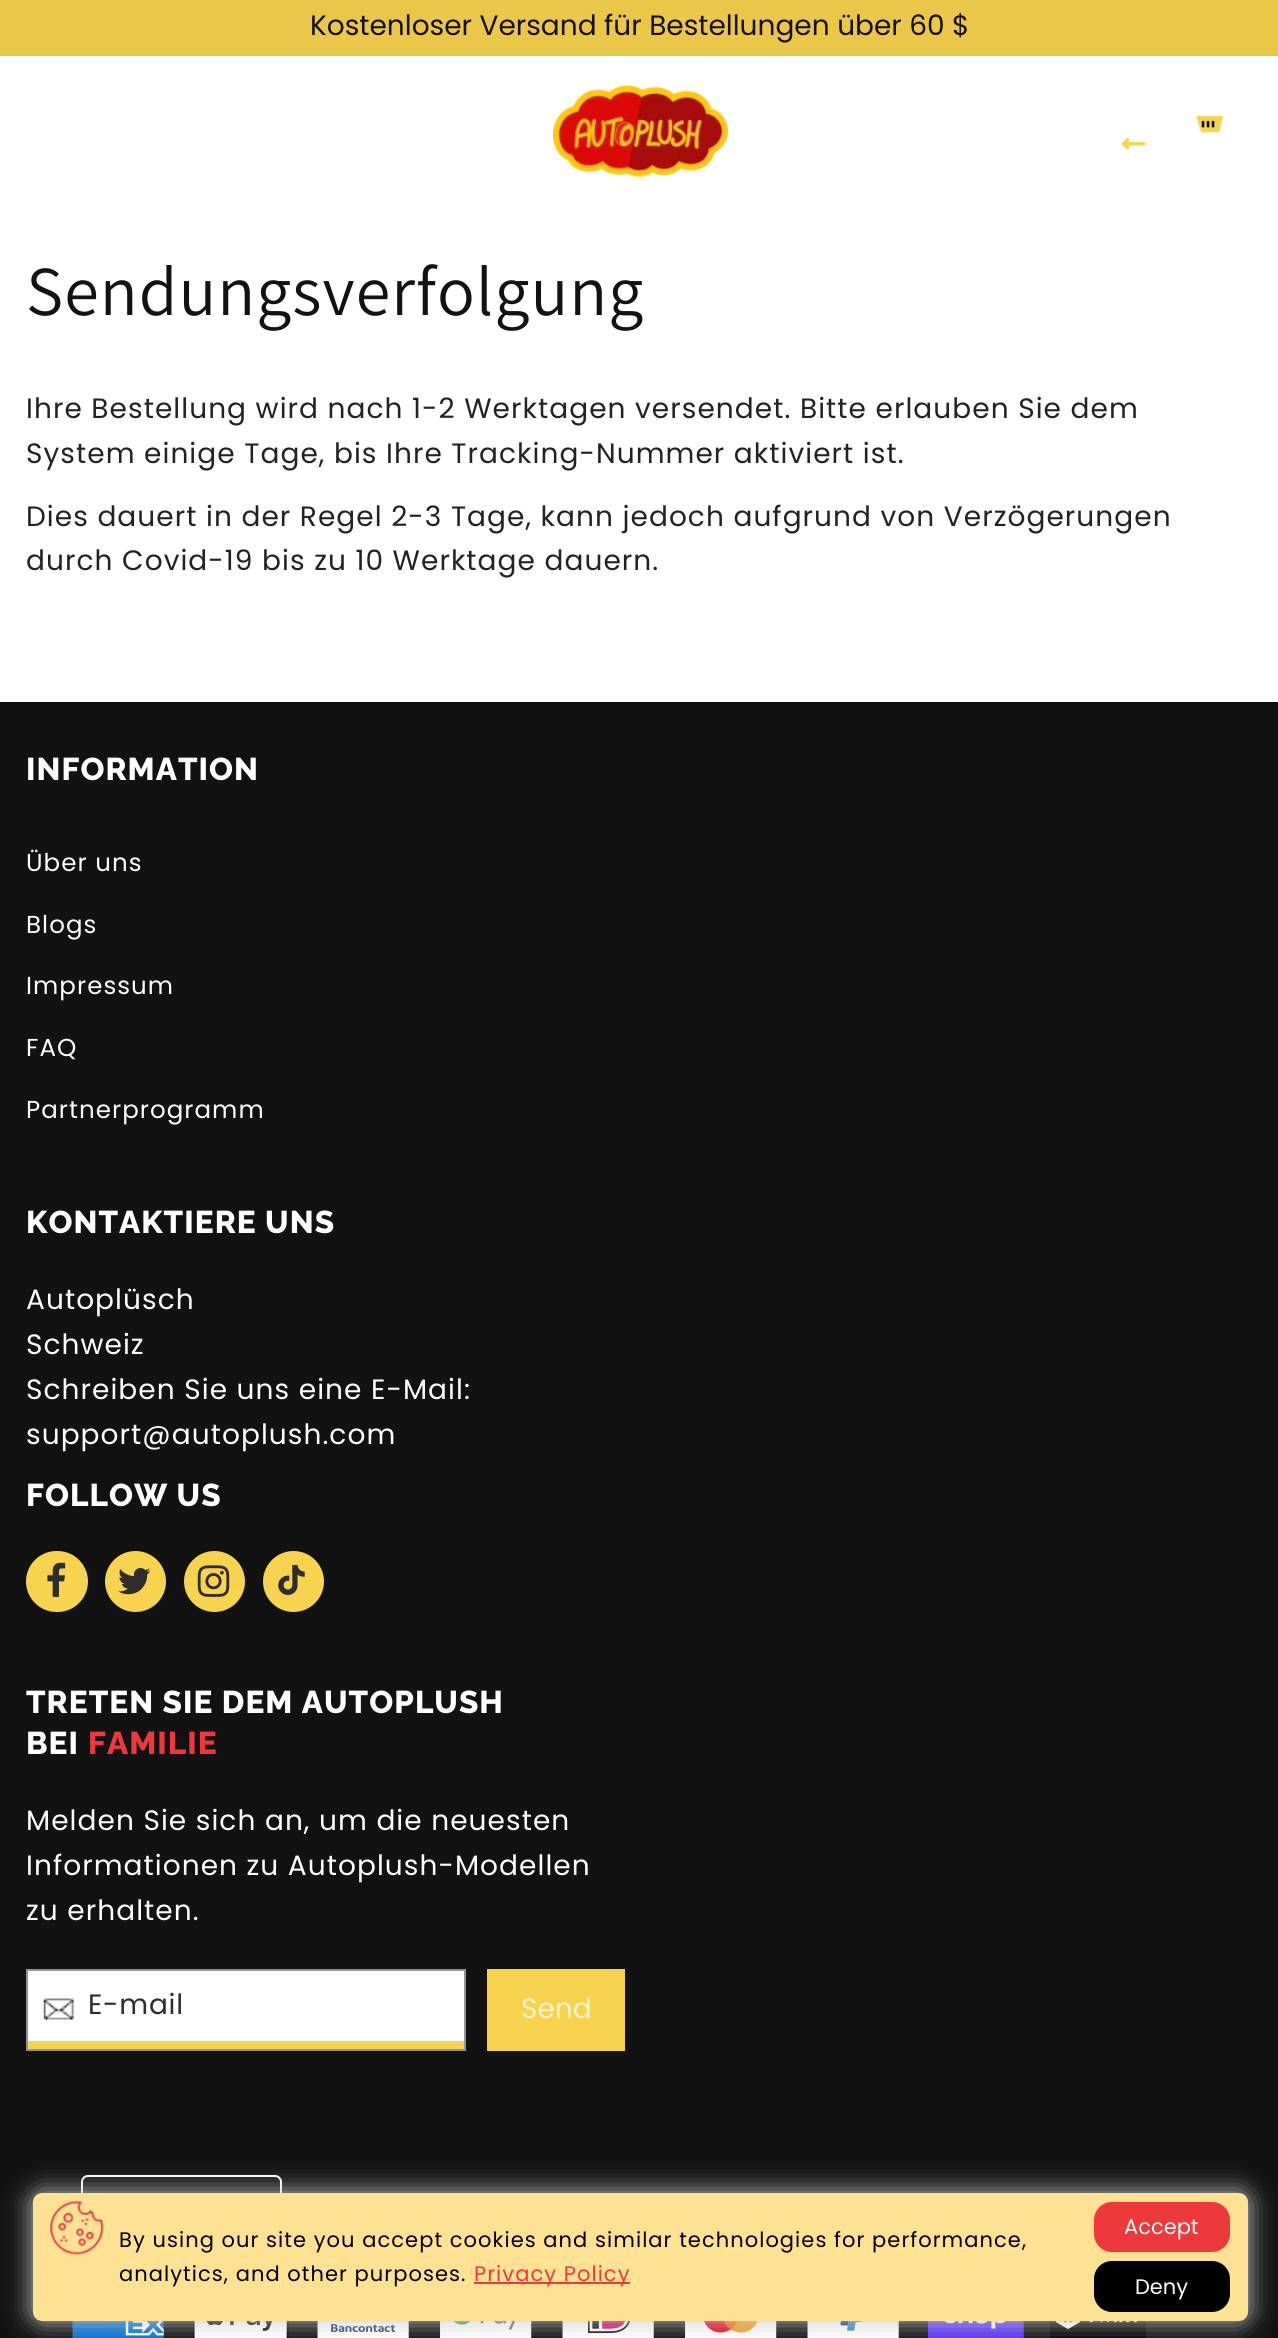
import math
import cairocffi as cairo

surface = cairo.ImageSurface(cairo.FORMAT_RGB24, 1278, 2338)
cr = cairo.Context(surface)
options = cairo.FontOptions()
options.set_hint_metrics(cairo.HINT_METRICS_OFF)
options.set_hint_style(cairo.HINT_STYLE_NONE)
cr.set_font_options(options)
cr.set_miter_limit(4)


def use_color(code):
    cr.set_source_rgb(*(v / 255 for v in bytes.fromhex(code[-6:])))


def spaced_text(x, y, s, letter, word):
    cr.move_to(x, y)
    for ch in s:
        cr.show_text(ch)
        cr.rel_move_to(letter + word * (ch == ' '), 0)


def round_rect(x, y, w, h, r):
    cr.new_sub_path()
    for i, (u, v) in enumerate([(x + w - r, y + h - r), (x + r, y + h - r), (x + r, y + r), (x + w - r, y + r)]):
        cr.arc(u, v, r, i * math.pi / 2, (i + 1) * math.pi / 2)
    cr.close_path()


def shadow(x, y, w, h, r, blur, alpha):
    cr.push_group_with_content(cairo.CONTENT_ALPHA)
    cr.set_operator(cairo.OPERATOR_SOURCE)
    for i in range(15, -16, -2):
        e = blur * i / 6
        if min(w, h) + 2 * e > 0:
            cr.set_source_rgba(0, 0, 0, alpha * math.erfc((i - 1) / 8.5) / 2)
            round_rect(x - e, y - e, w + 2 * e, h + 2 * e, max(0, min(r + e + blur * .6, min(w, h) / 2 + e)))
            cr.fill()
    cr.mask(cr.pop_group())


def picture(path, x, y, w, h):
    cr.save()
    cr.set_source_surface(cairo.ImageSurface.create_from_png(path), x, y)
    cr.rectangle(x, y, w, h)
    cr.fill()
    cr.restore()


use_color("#ffffff")
cr.paint()
use_color("#e6c448")
cr.rectangle(0, 54, 1278, 2)
cr.fill()
use_color("#eac749")
cr.rectangle(0, 0, 1278, 54)
cr.fill()
cr.select_font_face("Poppins")
cr.set_font_size(28)
use_color("#121212")
cr.move_to(310, 35)
cr.show_text("Kostenloser Versand für Bestellungen über 60 $")
picture("img1.png", 553, 85, 175, 92)
picture("img2.png", 1195, 115, 29, 18)
picture("img3.png", 1122, 138, 24, 12)
cr.select_font_face("Assistant")
cr.set_font_size(70)
spaced_text(26, 315, "Sendungsverfolgung", 1.05, 0)
cr.select_font_face("Poppins")
cr.set_font_size(28)
use_color("#222222")
spaced_text(26, 418, "Ihre Bestellung wird nach 1-2 Werktagen versendet. Bitte erlauben Sie dem", 1.05, 0)
spaced_text(26, 463, "System einige Tage, bis Ihre Tracking-Nummer aktiviert ist.", 1.05, 0)
spaced_text(26, 526, "Dies dauert in der Regel 2-3 Tage, kann jedoch aufgrund von Verzögerungen", 1.05, 0)
spaced_text(26, 570, "durch Covid-19 bis zu 10 Werktage dauern.", 1.05, 0)
use_color("#121212")
cr.rectangle(0, 702, 1278, 1636)
cr.fill()
cr.select_font_face("Raleway ExtraBold")
cr.set_font_size(31.5)
use_color("#ffffff")
spaced_text(26, 780, "INFORMATION", 1.05, 0)
cr.select_font_face("Poppins")
cr.set_font_size(24.5)
spaced_text(26, 871, "Über uns", 1.05, 0)
spaced_text(26, 933, "Blogs", 1.05, 0)
spaced_text(26, 994, "Impressum", 1.05, 0)
spaced_text(26, 1056, "FAQ", 1.05, 0)
spaced_text(26, 1118, "Partnerprogramm", 1.05, 0)
cr.select_font_face("Raleway ExtraBold")
cr.set_font_size(31.5)
spaced_text(26, 1233, "KONTAKTIERE UNS", 1.05, 0)
cr.select_font_face("Poppins")
cr.set_font_size(28)
spaced_text(26, 1309, "Autoplüsch", 1.05, 0)
spaced_text(26, 1354, "Schweiz", 1.05, 0)
spaced_text(26, 1399, "Schreiben Sie uns eine E-Mail:", 1.05, 0)
spaced_text(26, 1444, "support@autoplush.com", 1.05, 0)
cr.select_font_face("Raleway ExtraBold")
cr.set_font_size(31.5)
spaced_text(26, 1506, "FOLLOW US", 1.05, 0)
use_color("#f8d34d")
round_rect(26, 1551, 62, 61, 30.5)
cr.fill()
picture("img4.png", 47, 1562, 19, 35)
cr.arc(135.5, 1581.5, 30.5, 0, 2 * math.pi)
cr.fill()
picture("img5.png", 118, 1568, 33, 27)
cr.arc(214.5, 1581.5, 30.5, 0, 2 * math.pi)
cr.fill()
picture("img6.png", 197, 1565, 33, 32)
cr.arc(293.5, 1581.5, 30.5, 0, 2 * math.pi)
cr.fill()
picture("img7.png", 278, 1565, 27, 30)
use_color("#ffffff")
spaced_text(26, 1713, "TRETEN SIE DEM AUTOPLUSH", 1.05, 0)
spaced_text(26, 1754, "BEI", 1.05, 0)
use_color("#ed393c")
spaced_text(88, 1754, "FAMILIE", 1.05, 0)
cr.select_font_face("Poppins")
cr.set_font_size(28)
use_color("#ffffff")
spaced_text(26, 1830, "Melden Sie sich an, um die neuesten", 1.05, 0)
spaced_text(26, 1875, "Informationen zu Autoplush-Modellen", 1.05, 0)
spaced_text(26, 1920, "zu erhalten.", 1.05, 0)
cr.rectangle(28, 1971, 436, 70)
cr.fill()
picture("img8.png", 43, 1998, 31, 22)
use_color("#f8d34d")
cr.rectangle(28, 2041, 436, 8)
cr.fill()
cr.rectangle(27, 1970, 438, 80)
use_color("#949494")
cr.stroke()
use_color("#2d2d2d")
spaced_text(88, 2014, "E-mail", 0.75, 0)
use_color("#f8d34d")
cr.rectangle(487, 1969, 138, 82)
cr.fill()
use_color("#fdf4d3")
cr.move_to(521, 2018)
cr.show_text("Send")
round_rect(82, 2176, 199, 58, 6)
use_color("#ffffff")
cr.stroke()
picture("img9.png", 72, 2321, 92, 17)
picture("img10.png", 193, 2321, 96, 17)
picture("img11.png", 317, 2321, 92, 17)
picture("img12.png", 440, 2321, 92, 17)
picture("img13.png", 562, 2321, 92, 17)
picture("img14.png", 685, 2321, 92, 17)
picture("img15.png", 807, 2321, 92, 17)
picture("img16.png", 928, 2321, 96, 17)
picture("img17.png", 1050, 2321, 96, 17)
use_color("#cccccc")
shadow(33, 2193, 1215, 128, 9, 13, 1)
use_color("#ffe193")
round_rect(33, 2193, 1215, 128, 9)
cr.fill()
picture("img18.png", 50, 2200, 54, 55)
cr.set_font_size(21)
use_color("#000000")
spaced_text(119, 2247, "By using our site you accept cookies and similar technologies for performance,", 1.05, 0)
spaced_text(119, 2281, "analytics, and other purposes.", 1.05, 0)
use_color("#ed393c")
cr.rectangle(474, 2282, 156, 2)
cr.fill()
spaced_text(474, 2281, "Privacy Policy", 1.05, 0)
round_rect(1094, 2202, 136, 50, 18)
cr.fill()
use_color("#ffffff")
cr.move_to(1124, 2234)
cr.show_text("Accept")
use_color("#000000")
round_rect(1094, 2261, 136, 51, 18)
cr.fill()
use_color("#ffffff")
cr.move_to(1135, 2294)
cr.show_text("Deny")
surface.write_to_png("result.png")
